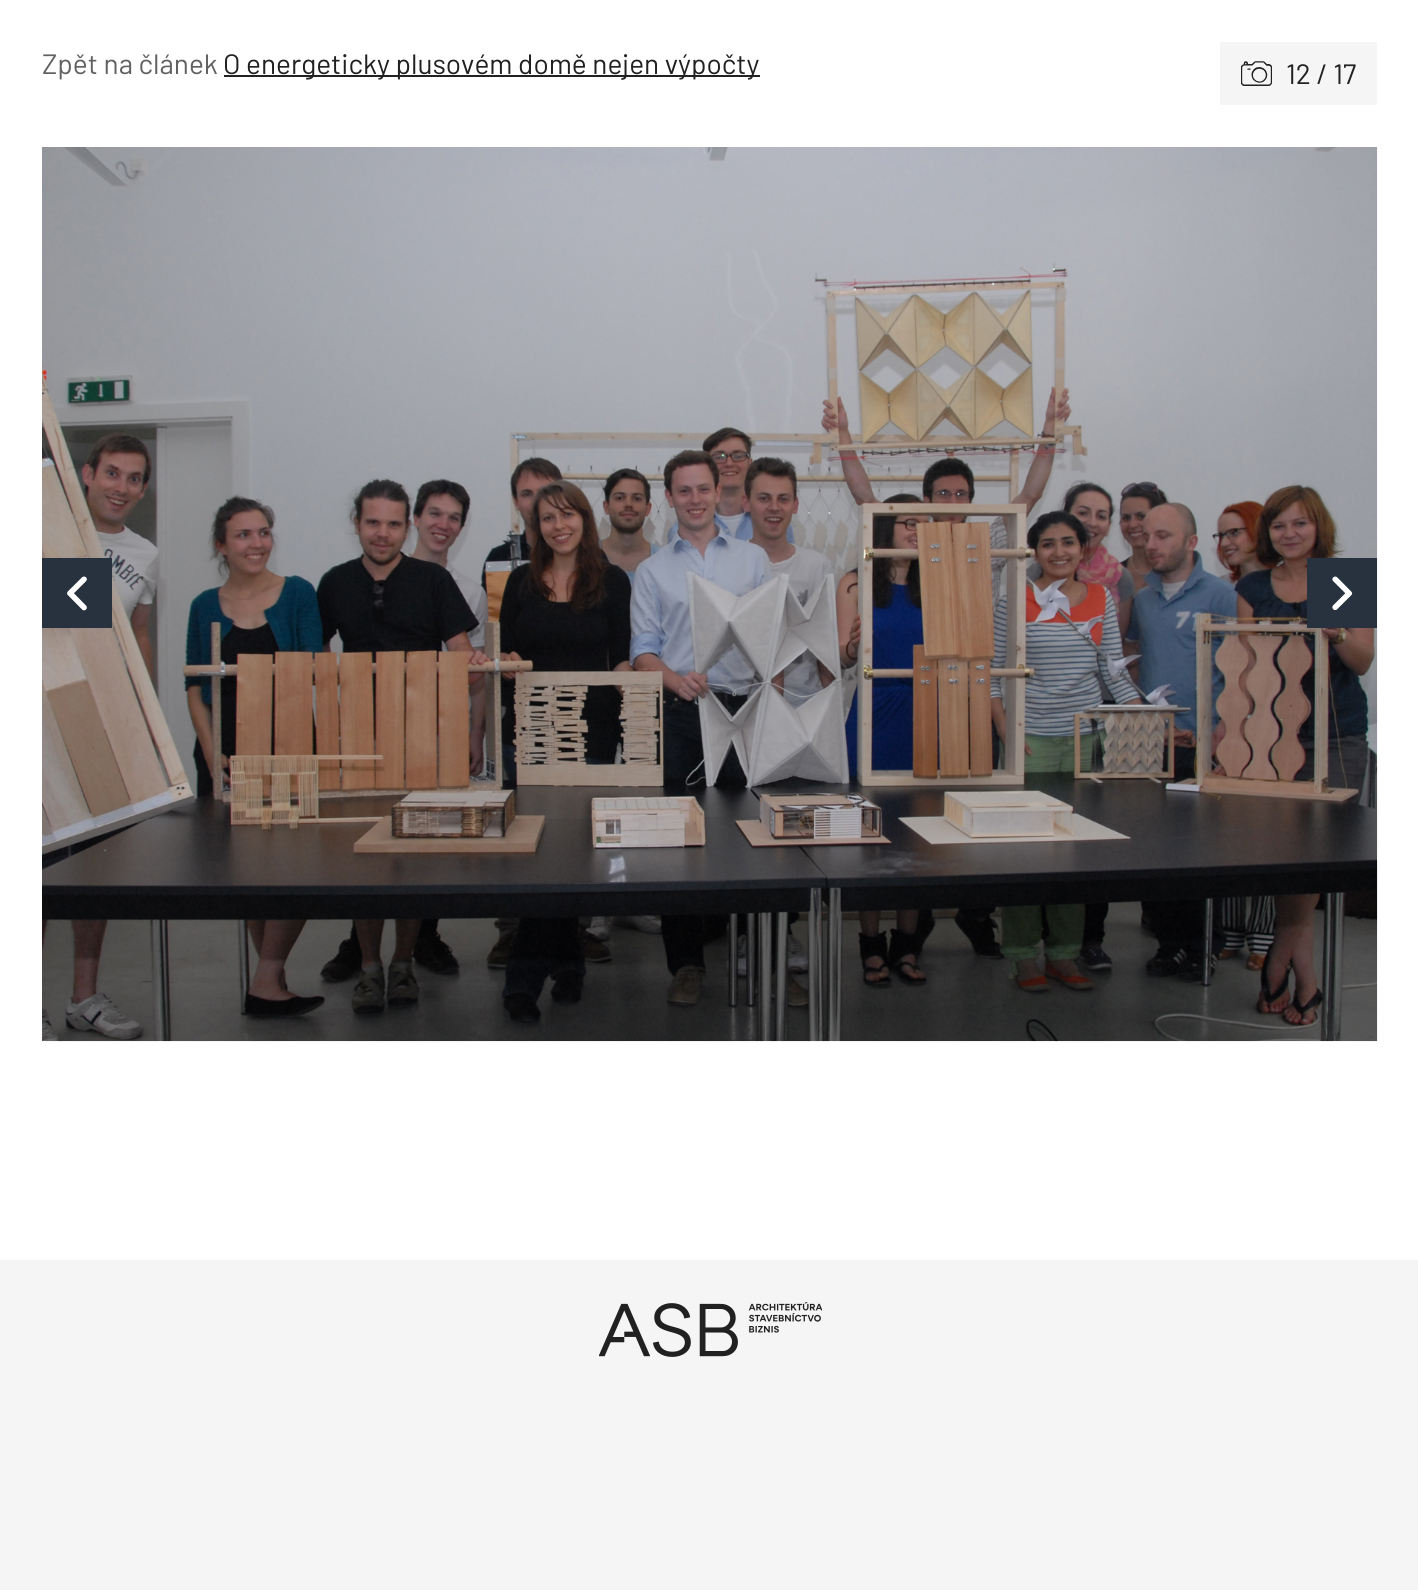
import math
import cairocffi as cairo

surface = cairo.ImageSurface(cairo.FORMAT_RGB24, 1418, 1590)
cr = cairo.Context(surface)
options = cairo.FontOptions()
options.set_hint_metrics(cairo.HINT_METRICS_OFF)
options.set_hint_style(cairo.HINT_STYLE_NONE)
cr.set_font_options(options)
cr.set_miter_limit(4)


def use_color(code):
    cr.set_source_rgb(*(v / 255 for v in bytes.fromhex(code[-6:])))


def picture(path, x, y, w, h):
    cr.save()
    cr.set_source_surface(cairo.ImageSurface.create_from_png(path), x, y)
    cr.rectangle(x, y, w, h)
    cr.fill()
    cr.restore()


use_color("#ffffff")
cr.paint()
cr.select_font_face("Barlow")
cr.set_font_size(28)
use_color("#616161")
cr.move_to(42, 74)
cr.show_text("Zpět na článek")
use_color("#212121")
cr.rectangle(224, 75, 536, 2)
cr.fill()
cr.move_to(223, 74)
cr.show_text("O energeticky plusovém domě nejen výpočty")
use_color("#f5f5f5")
cr.rectangle(1220, 42, 157, 63)
cr.fill()
picture("img1.png", 1241, 61, 31, 25)
use_color("#212121")
cr.move_to(1286, 84)
cr.show_text("12 / 17")
picture("img2.png", 42, 147, 1336, 895)
use_color("#28313e")
cr.rectangle(42, 558, 70, 70)
cr.fill()
picture("img3.png", 67, 576, 20, 35)
cr.rectangle(1307, 558, 70, 70)
cr.fill()
picture("img4.png", 1332, 576, 21, 34)
use_color("#f5f5f5")
cr.rectangle(0, 1260, 1418, 330)
cr.fill()
picture("img5.png", 599, 1302, 223, 55)
surface.write_to_png("result.png")
